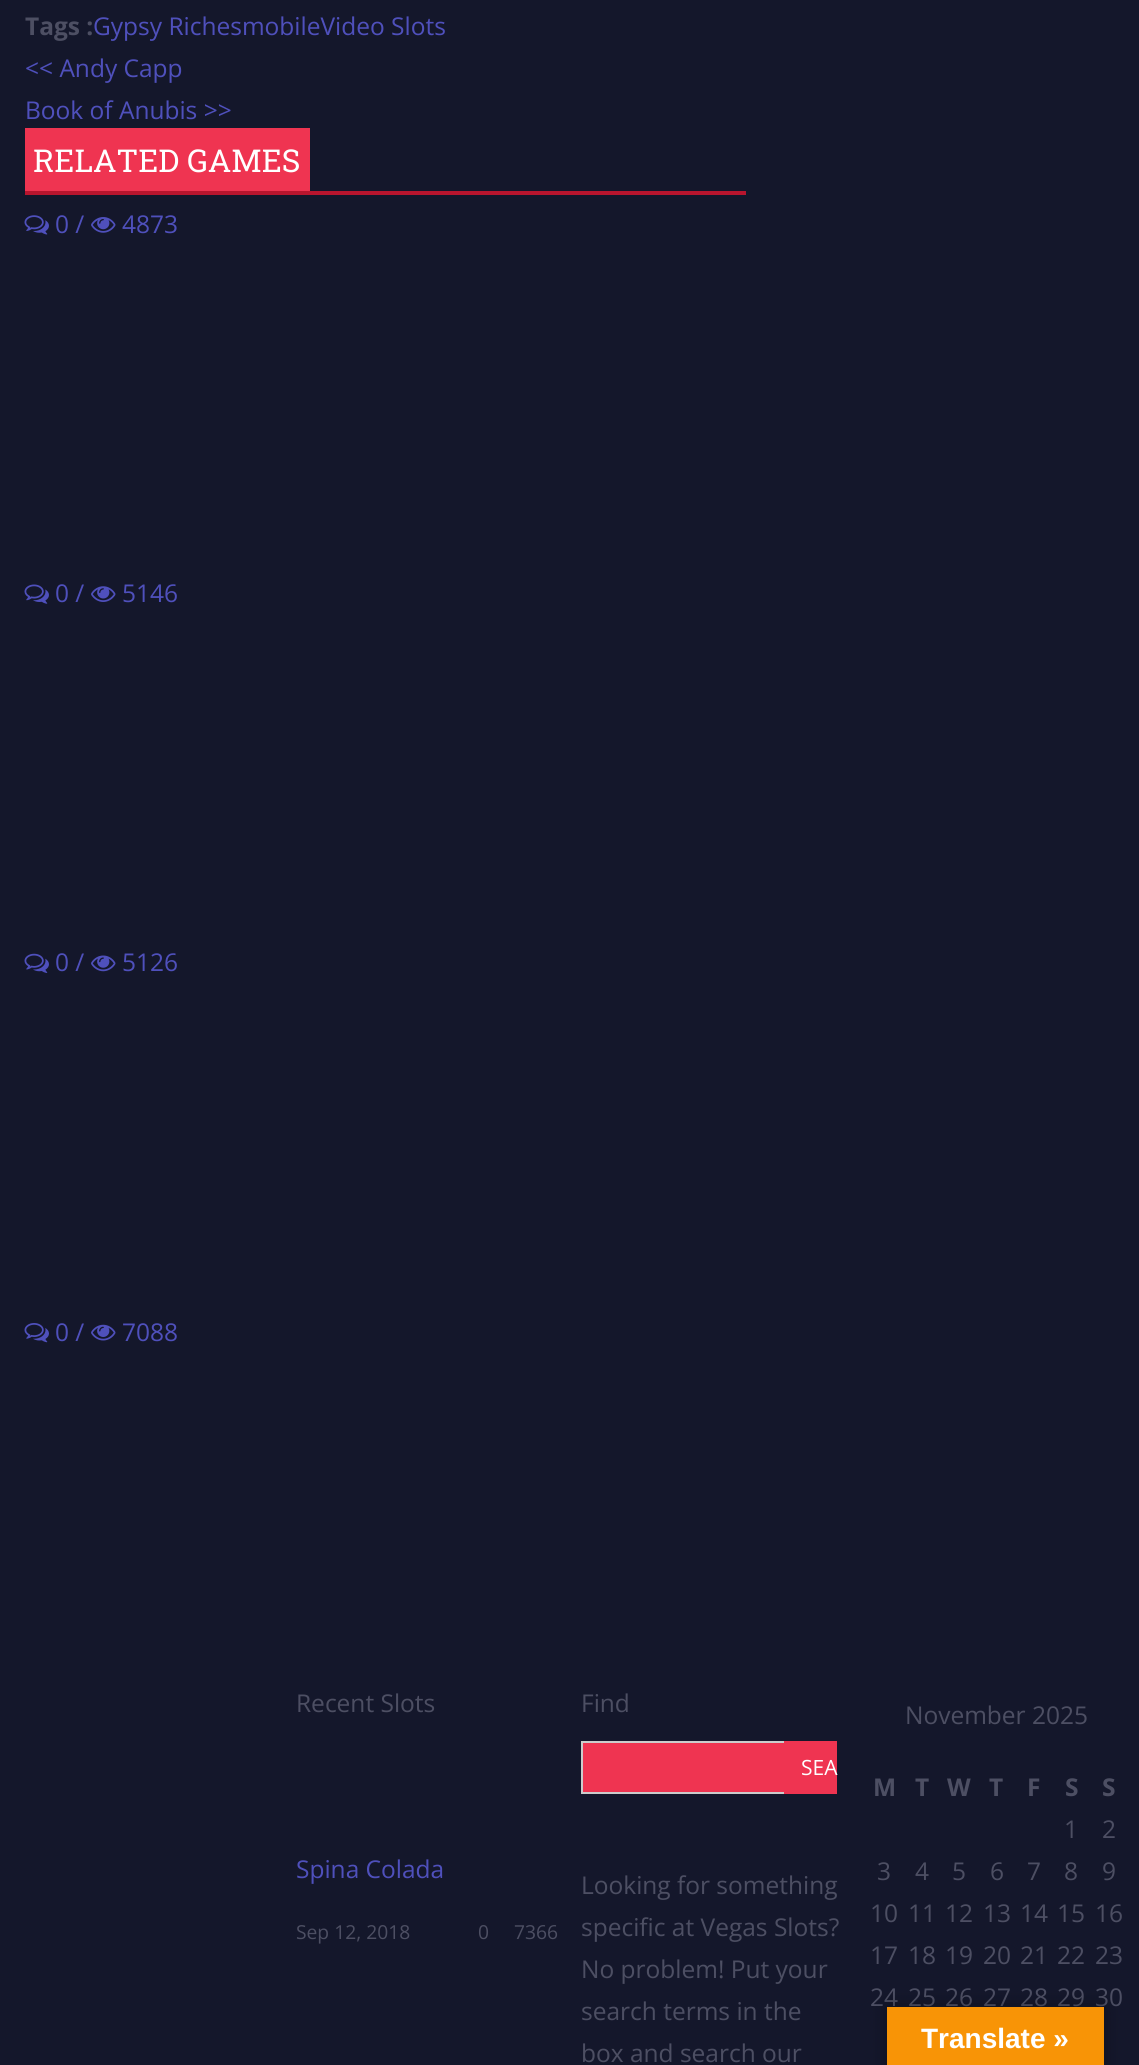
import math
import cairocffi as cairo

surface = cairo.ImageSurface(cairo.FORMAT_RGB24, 1139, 2065)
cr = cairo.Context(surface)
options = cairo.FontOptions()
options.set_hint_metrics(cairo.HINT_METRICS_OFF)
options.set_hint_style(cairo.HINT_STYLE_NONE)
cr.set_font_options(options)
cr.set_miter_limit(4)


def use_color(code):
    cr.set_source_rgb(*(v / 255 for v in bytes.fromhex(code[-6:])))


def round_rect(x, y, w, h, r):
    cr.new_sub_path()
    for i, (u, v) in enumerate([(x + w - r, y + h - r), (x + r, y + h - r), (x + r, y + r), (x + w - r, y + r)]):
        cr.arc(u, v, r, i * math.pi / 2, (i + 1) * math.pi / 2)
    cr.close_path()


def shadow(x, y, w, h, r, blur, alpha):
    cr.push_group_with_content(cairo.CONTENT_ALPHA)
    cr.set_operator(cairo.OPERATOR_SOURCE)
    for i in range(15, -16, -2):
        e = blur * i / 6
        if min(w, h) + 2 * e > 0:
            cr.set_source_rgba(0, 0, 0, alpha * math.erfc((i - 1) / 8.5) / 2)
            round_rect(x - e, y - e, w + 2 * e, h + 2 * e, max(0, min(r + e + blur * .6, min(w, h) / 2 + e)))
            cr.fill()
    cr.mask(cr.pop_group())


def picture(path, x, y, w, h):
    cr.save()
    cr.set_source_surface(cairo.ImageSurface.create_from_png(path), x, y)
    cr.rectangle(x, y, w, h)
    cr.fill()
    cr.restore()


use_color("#14172b")
cr.paint()
cr.select_font_face("Open Sans", cairo.FONT_SLANT_NORMAL, cairo.FONT_WEIGHT_BOLD)
cr.set_font_size(24.5)
use_color("#4d4f63")
cr.move_to(25, 35)
cr.show_text("Tags :")
cr.select_font_face("Open Sans")
use_color("#4f50bc")
cr.move_to(93, 35)
cr.show_text("Gypsy RichesmobileVideo Slots")
cr.move_to(25, 77)
cr.show_text("<< Andy Capp")
cr.move_to(25, 119)
cr.show_text("Book of Anubis >>")
use_color("#ef3451")
cr.rectangle(25, 128, 285, 63)
cr.fill()
cr.select_font_face("Roboto Slab")
cr.set_font_size(31.5)
use_color("#ffffff")
cr.move_to(33, 172)
cr.show_text("RELATED GAMES")
use_color("#b8152e")
cr.rectangle(25, 191, 721, 4)
cr.fill()
picture("img1.png", 24, 215, 25, 20)
cr.select_font_face("Open Sans")
cr.set_font_size(24.5)
use_color("#4f50bc")
cr.move_to(55, 233)
cr.show_text("0 /")
picture("img2.png", 91, 217, 25, 16)
cr.move_to(122, 233)
cr.show_text("4873")
picture("img3.png", 24, 584, 25, 20)
cr.move_to(55, 602)
cr.show_text("0 /")
picture("img4.png", 91, 586, 25, 16)
cr.move_to(122, 602)
cr.show_text("5146")
picture("img5.png", 24, 953, 25, 20)
cr.move_to(55, 971)
cr.show_text("0 /")
picture("img6.png", 91, 955, 25, 17)
cr.move_to(122, 971)
cr.show_text("5126")
picture("img7.png", 24, 1323, 25, 20)
cr.move_to(55, 1341)
cr.show_text("0 /")
picture("img8.png", 91, 1324, 25, 17)
cr.move_to(122, 1341)
cr.show_text("7088")
use_color("#4d4f63")
cr.move_to(296, 1712)
cr.show_text("Recent Slots")
use_color("#4f50bc")
cr.move_to(296, 1878)
cr.show_text("Spina Colada")
cr.set_font_size(19.25)
use_color("#4d4f63")
cr.move_to(296, 1939)
cr.show_text("Sep 12, 2018")
cr.move_to(478, 1939)
cr.show_text("0")
cr.move_to(514, 1939)
cr.show_text("7366")
cr.set_font_size(24.5)
cr.move_to(581, 1712)
cr.show_text("Find")
use_color("#ef3451")
cr.rectangle(583, 1743, 201, 49)
cr.fill()
cr.rectangle(582, 1742, 208, 51)
use_color("#cccccc")
cr.stroke()
use_color("#ef3451")
cr.rectangle(784, 1741, 53, 53)
cr.fill()
cr.set_font_size(21)
use_color("#ffffff")
cr.move_to(801, 1775)
cr.show_text("SEA")
cr.set_font_size(24.5)
use_color("#4d4f63")
cr.move_to(581, 1894)
cr.show_text("Looking for something")
cr.move_to(581, 1936)
cr.show_text("specific at Vegas Slots?")
cr.move_to(581, 1978)
cr.show_text("No problem! Put your")
cr.move_to(581, 2020)
cr.show_text("search terms in the")
cr.move_to(581, 2062)
cr.show_text("box and search our")
cr.move_to(905, 1724)
cr.show_text("November 2025")
cr.select_font_face("Open Sans", cairo.FONT_SLANT_NORMAL, cairo.FONT_WEIGHT_BOLD)
cr.move_to(873, 1796)
cr.show_text("M")
cr.move_to(915, 1796)
cr.show_text("T")
cr.move_to(947, 1796)
cr.show_text("W")
cr.move_to(989, 1796)
cr.show_text("T")
cr.move_to(1027, 1796)
cr.show_text("F")
cr.move_to(1065, 1796)
cr.show_text("S")
cr.move_to(1102, 1796)
cr.show_text("S")
cr.select_font_face("Open Sans")
cr.move_to(1064, 1838)
cr.show_text("1")
cr.move_to(1102, 1838)
cr.show_text("2")
cr.move_to(877, 1880)
cr.show_text("3")
cr.move_to(915, 1880)
cr.show_text("4")
cr.move_to(952, 1880)
cr.show_text("5")
cr.move_to(990, 1880)
cr.show_text("6")
cr.move_to(1027, 1880)
cr.show_text("7")
cr.move_to(1064, 1880)
cr.show_text("8")
cr.move_to(1102, 1880)
cr.show_text("9")
cr.move_to(870, 1922)
cr.show_text("10")
cr.move_to(908, 1922)
cr.show_text("11")
cr.move_to(945, 1922)
cr.show_text("12")
cr.move_to(983, 1922)
cr.show_text("13")
cr.move_to(1020, 1922)
cr.show_text("14")
cr.move_to(1057, 1922)
cr.show_text("15")
cr.move_to(1095, 1922)
cr.show_text("16")
cr.move_to(870, 1964)
cr.show_text("17")
cr.move_to(908, 1964)
cr.show_text("18")
cr.move_to(945, 1964)
cr.show_text("19")
cr.move_to(983, 1964)
cr.show_text("20")
cr.move_to(1020, 1964)
cr.show_text("21")
cr.move_to(1057, 1964)
cr.show_text("22")
cr.move_to(1095, 1964)
cr.show_text("23")
cr.move_to(870, 2006)
cr.show_text("24")
cr.move_to(908, 2006)
cr.show_text("25")
cr.move_to(945, 2006)
cr.show_text("26")
cr.move_to(983, 2006)
cr.show_text("27")
cr.move_to(1020, 2006)
cr.show_text("28")
cr.move_to(1057, 2006)
cr.show_text("29")
cr.move_to(1095, 2006)
cr.show_text("30")
use_color("#000000")
shadow(887, 2007, 217, 58, 0, 8, 0.3)
use_color("#f89406")
cr.rectangle(887, 2007, 217, 58)
cr.fill()
cr.select_font_face("Liberation Sans", cairo.FONT_SLANT_NORMAL, cairo.FONT_WEIGHT_BOLD)
cr.set_font_size(28)
use_color("#ffffff")
cr.move_to(921, 2048)
cr.show_text("Translate »")
surface.write_to_png("result.png")
